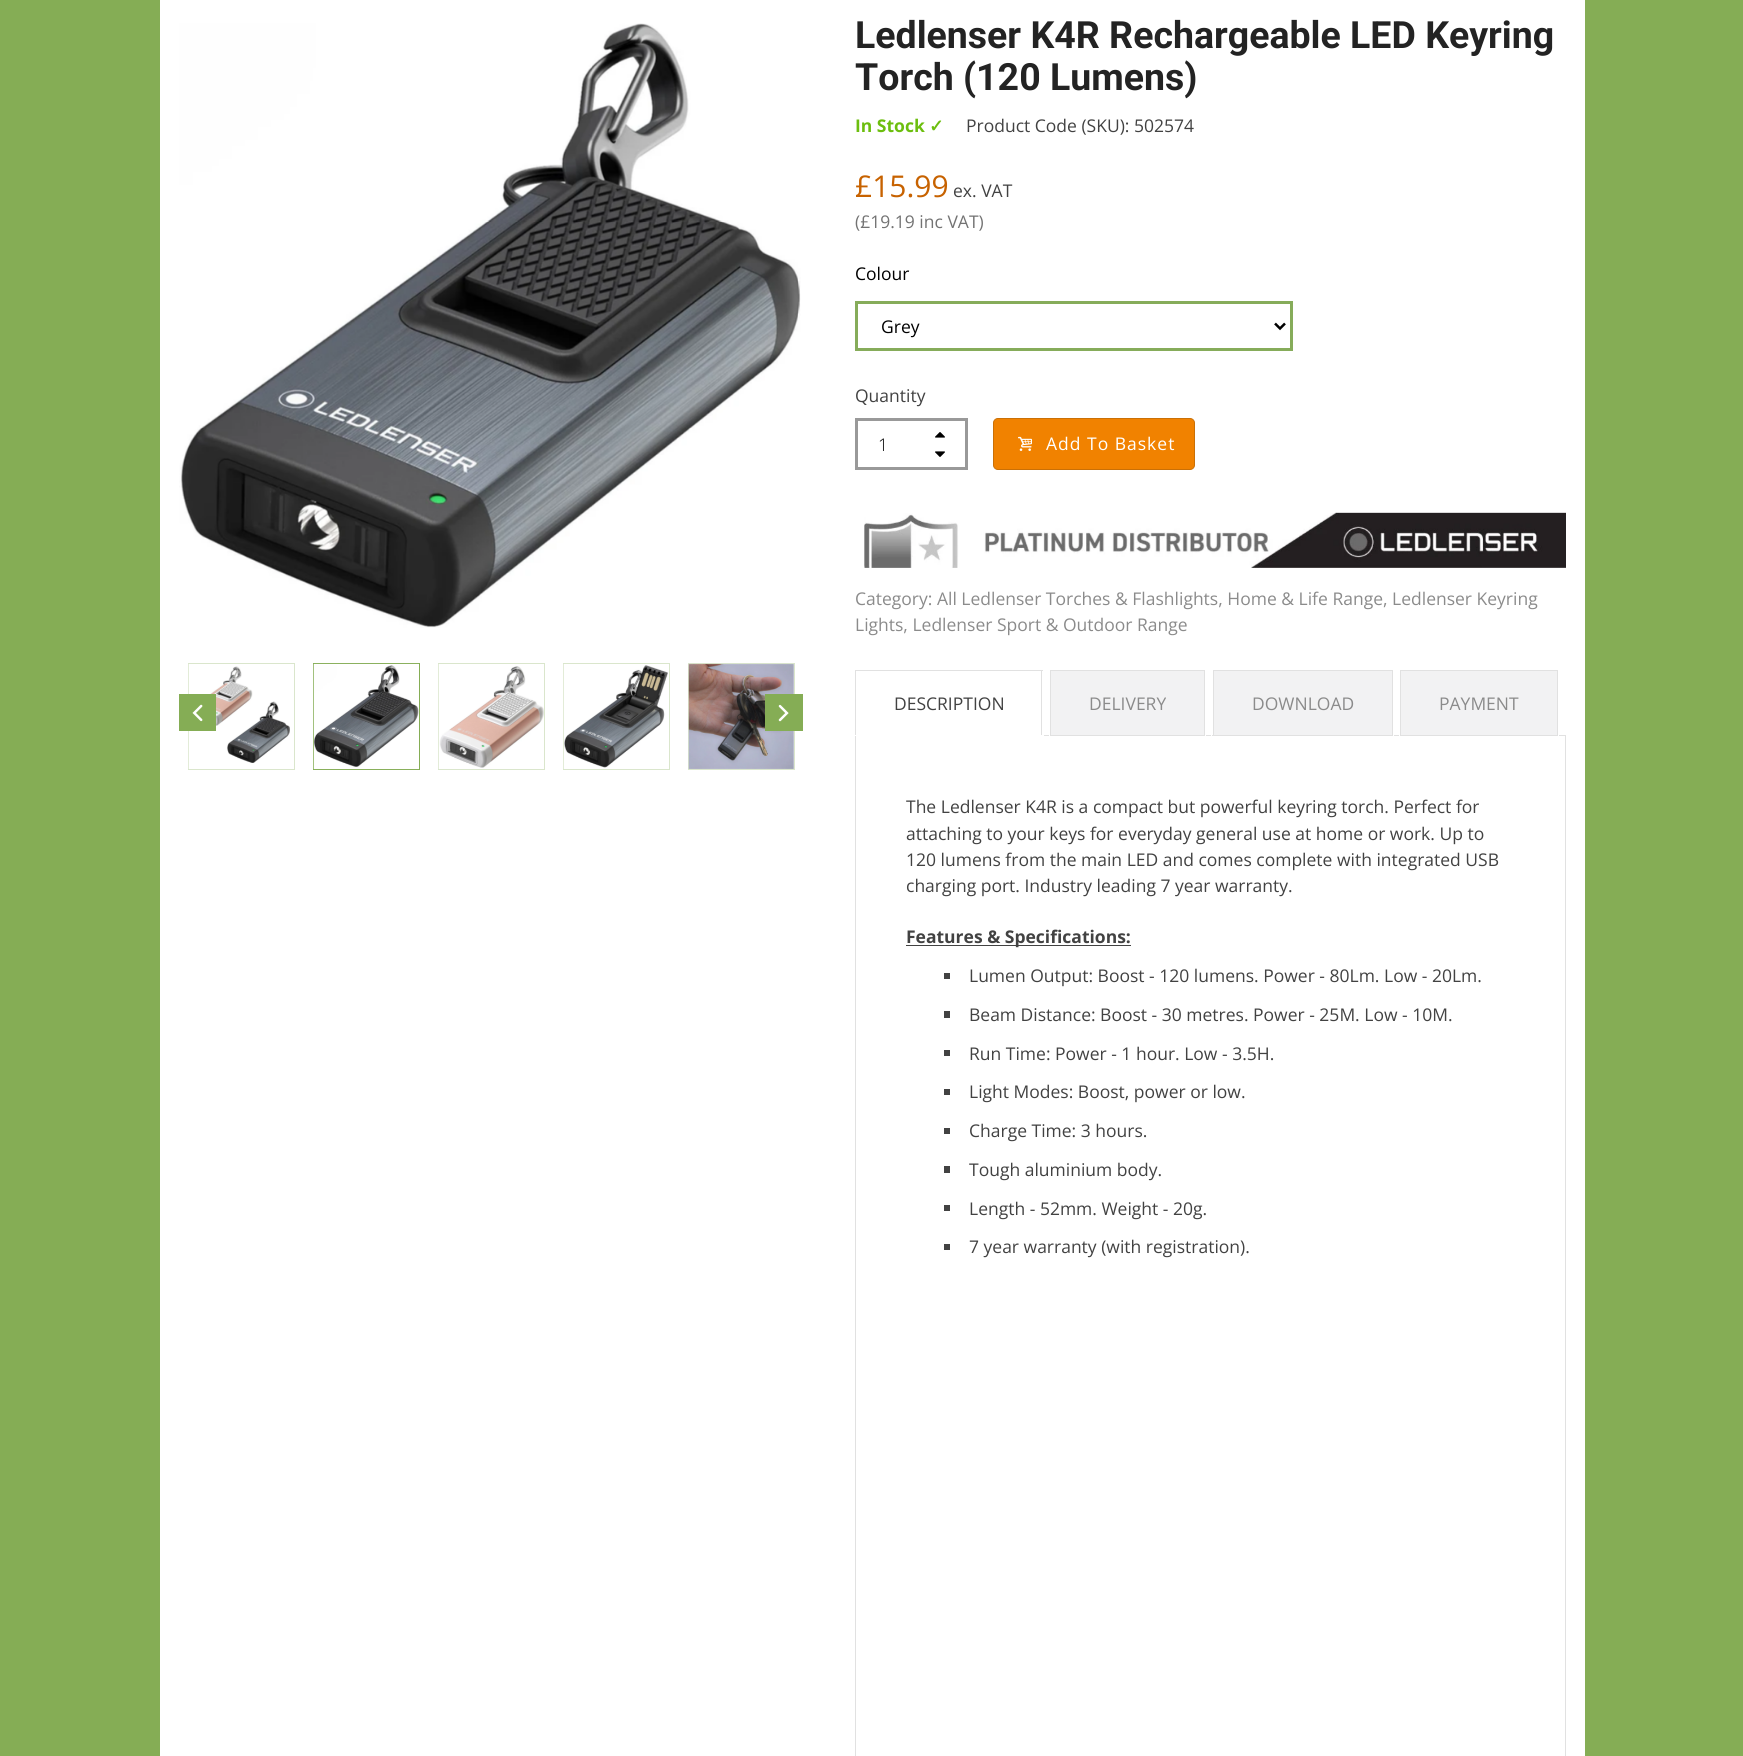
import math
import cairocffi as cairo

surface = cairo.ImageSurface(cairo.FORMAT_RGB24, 1743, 1756)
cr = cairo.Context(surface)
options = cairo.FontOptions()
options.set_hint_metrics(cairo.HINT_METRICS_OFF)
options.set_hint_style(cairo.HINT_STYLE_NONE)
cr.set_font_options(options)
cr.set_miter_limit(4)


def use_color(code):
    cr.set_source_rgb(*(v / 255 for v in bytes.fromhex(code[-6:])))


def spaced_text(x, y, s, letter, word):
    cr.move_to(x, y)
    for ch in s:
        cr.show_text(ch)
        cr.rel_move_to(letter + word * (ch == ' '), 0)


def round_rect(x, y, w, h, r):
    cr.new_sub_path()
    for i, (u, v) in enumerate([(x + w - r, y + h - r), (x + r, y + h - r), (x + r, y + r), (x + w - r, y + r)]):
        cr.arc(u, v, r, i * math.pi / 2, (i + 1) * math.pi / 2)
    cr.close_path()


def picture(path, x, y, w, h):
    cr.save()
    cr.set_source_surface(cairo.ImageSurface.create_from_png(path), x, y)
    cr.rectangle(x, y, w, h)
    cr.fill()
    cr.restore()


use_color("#85ad55")
cr.paint()
use_color("#ffffff")
cr.rectangle(160, 0, 1425, 1756)
cr.fill()
picture("img1.png", 179, 23, 622, 605)
cr.rectangle(188.5, 663.5, 106, 106)
use_color("#dae6cc")
cr.set_line_width(1)
cr.stroke()
picture("img2.png", 188, 664, 102, 105)
cr.rectangle(313.5, 663.5, 106, 106)
use_color("#85ad55")
cr.stroke()
picture("img3.png", 313, 663, 106, 107)
cr.rectangle(438.5, 663.5, 106, 106)
use_color("#dae6cc")
cr.stroke()
picture("img4.png", 438, 664, 106, 105)
cr.rectangle(563.5, 663.5, 106, 106)
cr.stroke()
picture("img5.png", 563, 664, 105, 105)
cr.rectangle(688.5, 663.5, 106, 106)
cr.stroke()
picture("img6.png", 688, 663, 106, 106)
use_color("#85ad55")
cr.rectangle(179, 694, 37, 37)
cr.fill()
picture("img7.png", 192, 704, 11, 18)
cr.rectangle(765, 694, 38, 37)
cr.fill()
picture("img8.png", 778, 704, 11, 18)
cr.select_font_face("Roboto", cairo.FONT_SLANT_NORMAL, cairo.FONT_WEIGHT_BOLD)
cr.set_font_size(37.5)
use_color("#232323")
cr.move_to(855, 48)
cr.show_text("Ledlenser K4R Rechargeable LED Keyring")
cr.move_to(855, 90)
cr.show_text("Torch (120 Lumens)")
cr.select_font_face("Open Sans", cairo.FONT_SLANT_NORMAL, cairo.FONT_WEIGHT_BOLD)
cr.set_font_size(17.5)
use_color("#6cbe0e")
cr.move_to(855, 132)
cr.show_text("In Stock")
cr.select_font_face("DejaVu Sans", cairo.FONT_SLANT_NORMAL, cairo.FONT_WEIGHT_BOLD)
cr.move_to(929, 132)
cr.show_text("✓")
cr.select_font_face("Open Sans")
use_color("#424242")
cr.move_to(966, 132)
cr.show_text("Product Code (SKU): 502574")
cr.set_font_size(30)
use_color("#c76200")
cr.move_to(855, 197)
cr.show_text("£15.99")
cr.set_font_size(17.5)
use_color("#424242")
cr.move_to(953, 197)
cr.show_text("ex. VAT")
use_color("#737373")
cr.move_to(855, 228)
cr.show_text("(£19.19 inc VAT)")
use_color("#000000")
cr.move_to(855, 280)
cr.show_text("Colour")
cr.rectangle(856.5, 302.5, 435, 47)
use_color("#86ac5a")
cr.set_line_width(3)
cr.stroke()
cr.new_path()
cr.move_to(1275, 323.5)
cr.line_to(1280, 328.5)
cr.line_to(1285, 323.5)
use_color("#000000")
cr.set_line_width(2.5)
cr.stroke()
cr.move_to(881, 333)
cr.show_text("Grey")
use_color("#424242")
cr.move_to(855, 402)
cr.show_text("Quantity")
cr.rectangle(856.5, 419.5, 110, 49)
use_color("#999999")
cr.set_line_width(3)
cr.stroke()
picture("img9.png", 935, 432, 10, 6)
cr.select_font_face("Open Sans Light")
use_color("#000000")
cr.move_to(878, 451)
cr.show_text("1")
picture("img10.png", 935, 451, 10, 6)
use_color("#f18200")
round_rect(993.5, 418.5, 201, 51, 4.5)
cr.fill_preserve()
use_color("#ca7006")
cr.set_line_width(1)
cr.stroke()
picture("img11.png", 1018, 436, 14, 15)
cr.select_font_face("Open Sans")
use_color("#ffffff")
spaced_text(1046, 450, "Add To Basket", 1, 0)
picture("img12.png", 864, 512, 702, 56)
use_color("#8b8b8b")
cr.move_to(855, 605)
cr.show_text("Category: All Ledlenser Torches & Flashlights, Home & Life Range, Ledlenser Keyring")
cr.move_to(855, 631)
cr.show_text("Lights, Ledlenser Sport & Outdoor Range")
cr.rectangle(855.5, 735.5, 710, 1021)
use_color("#e1e1e1")
cr.stroke()
cr.save()
cr.rectangle(855, 669, 711, 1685)
cr.clip()
cr.rectangle(854.5, 669.5, 189, 66)
use_color("#ffffff")
cr.stroke()
cr.restore()
cr.rectangle(855, 670, 188, 1)
cr.fill()
cr.rectangle(1041, 670, 1, 65)
cr.fill()
cr.rectangle(855, 670, 1, 65)
cr.fill()
use_color("#424242")
cr.move_to(894, 710)
cr.show_text("DESCRIPTION")
cr.rectangle(1049.5, 669.5, 156, 68)
use_color("#ffffff")
cr.stroke()
use_color("#f2f2f3")
cr.rectangle(1050.5, 670.5, 154, 65)
cr.fill_preserve()
use_color("#e1e1e1")
cr.stroke()
use_color("#8b8b8b")
cr.move_to(1089, 710)
cr.show_text("DELIVERY")
cr.rectangle(1211.5, 669.5, 182, 68)
use_color("#ffffff")
cr.stroke()
use_color("#f2f2f3")
cr.rectangle(1213.5, 670.5, 179, 65)
cr.fill_preserve()
use_color("#e1e1e1")
cr.stroke()
use_color("#8b8b8b")
cr.move_to(1252, 710)
cr.show_text("DOWNLOAD")
cr.rectangle(1399.5, 669.5, 159, 68)
use_color("#ffffff")
cr.stroke()
use_color("#f2f2f3")
cr.rectangle(1400.5, 670.5, 157, 65)
cr.fill_preserve()
use_color("#e1e1e1")
cr.stroke()
use_color("#8b8b8b")
cr.move_to(1439, 710)
cr.show_text("PAYMENT")
use_color("#424242")
cr.move_to(906, 813)
cr.show_text("The Ledlenser K4R is a compact but powerful keyring torch. Perfect for")
cr.move_to(906, 840)
cr.show_text("attaching to your keys for everyday general use at home or work. Up to")
cr.move_to(906, 866)
cr.show_text("120 lumens from the main LED and comes complete with integrated USB")
cr.move_to(906, 892)
cr.show_text("charging port. Industry leading 7 year warranty.")
cr.rectangle(906, 945, 225, 1)
cr.fill()
cr.select_font_face("Open Sans", cairo.FONT_SLANT_NORMAL, cairo.FONT_WEIGHT_BOLD)
cr.move_to(906, 943)
cr.show_text("Features & Specifications:")
cr.rectangle(944, 973, 6, 6)
cr.fill()
cr.select_font_face("Open Sans")
cr.move_to(969, 982)
cr.show_text("Lumen Output: Boost - 120 lumens. Power - 80Lm. Low - 20Lm.")
cr.rectangle(944, 1011, 6, 7)
cr.fill()
cr.move_to(969, 1021)
cr.show_text("Beam Distance: Boost - 30 metres. Power - 25M. Low - 10M.")
cr.rectangle(944, 1050, 6, 6)
cr.fill()
cr.move_to(969, 1060)
cr.show_text("Run Time: Power - 1 hour. Low - 3.5H.")
cr.rectangle(944, 1089, 6, 6)
cr.fill()
cr.move_to(969, 1098)
cr.show_text("Light Modes: Boost, power or low.")
cr.rectangle(944, 1128, 6, 6)
cr.fill()
cr.move_to(969, 1137)
cr.show_text("Charge Time: 3 hours.")
cr.rectangle(944, 1166, 6, 7)
cr.fill()
cr.move_to(969, 1176)
cr.show_text("Tough aluminium body.")
cr.rectangle(944, 1205, 6, 6)
cr.fill()
cr.move_to(969, 1215)
cr.show_text("Length - 52mm. Weight - 20g.")
cr.rectangle(944, 1244, 6, 6)
cr.fill()
cr.move_to(969, 1253)
cr.show_text("7 year warranty (with registration).")
surface.write_to_png("result.png")
